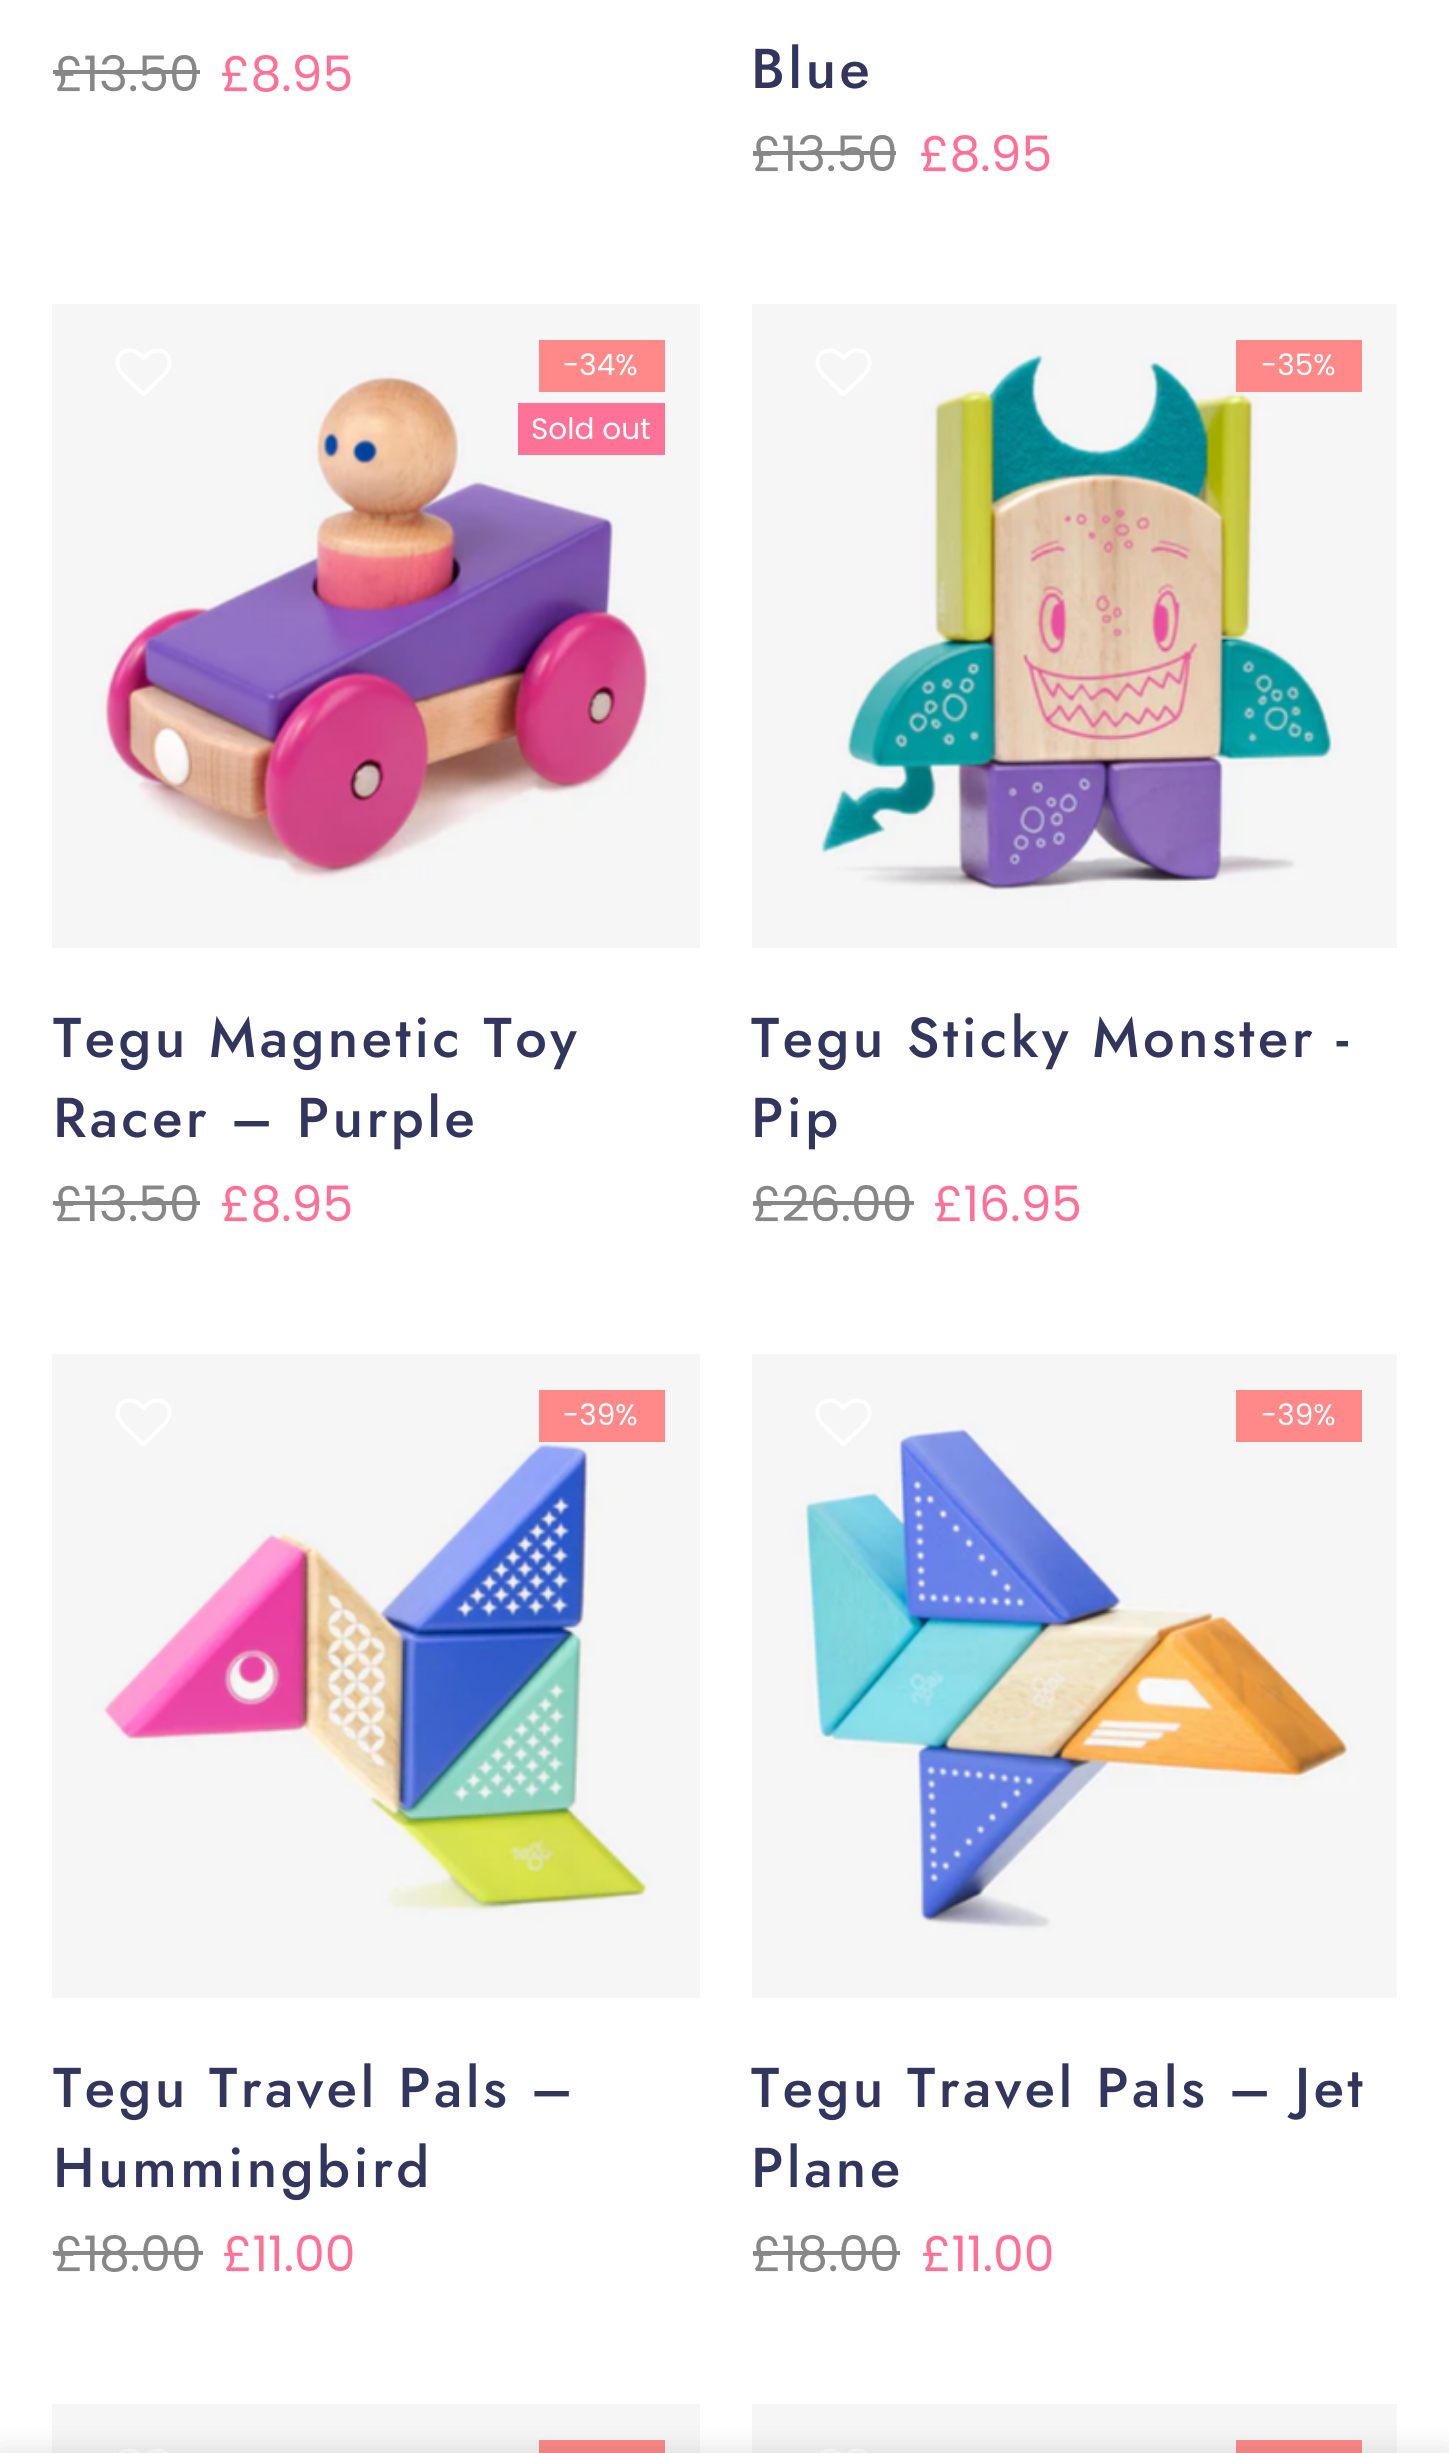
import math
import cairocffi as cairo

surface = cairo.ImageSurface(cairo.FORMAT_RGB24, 1449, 2453)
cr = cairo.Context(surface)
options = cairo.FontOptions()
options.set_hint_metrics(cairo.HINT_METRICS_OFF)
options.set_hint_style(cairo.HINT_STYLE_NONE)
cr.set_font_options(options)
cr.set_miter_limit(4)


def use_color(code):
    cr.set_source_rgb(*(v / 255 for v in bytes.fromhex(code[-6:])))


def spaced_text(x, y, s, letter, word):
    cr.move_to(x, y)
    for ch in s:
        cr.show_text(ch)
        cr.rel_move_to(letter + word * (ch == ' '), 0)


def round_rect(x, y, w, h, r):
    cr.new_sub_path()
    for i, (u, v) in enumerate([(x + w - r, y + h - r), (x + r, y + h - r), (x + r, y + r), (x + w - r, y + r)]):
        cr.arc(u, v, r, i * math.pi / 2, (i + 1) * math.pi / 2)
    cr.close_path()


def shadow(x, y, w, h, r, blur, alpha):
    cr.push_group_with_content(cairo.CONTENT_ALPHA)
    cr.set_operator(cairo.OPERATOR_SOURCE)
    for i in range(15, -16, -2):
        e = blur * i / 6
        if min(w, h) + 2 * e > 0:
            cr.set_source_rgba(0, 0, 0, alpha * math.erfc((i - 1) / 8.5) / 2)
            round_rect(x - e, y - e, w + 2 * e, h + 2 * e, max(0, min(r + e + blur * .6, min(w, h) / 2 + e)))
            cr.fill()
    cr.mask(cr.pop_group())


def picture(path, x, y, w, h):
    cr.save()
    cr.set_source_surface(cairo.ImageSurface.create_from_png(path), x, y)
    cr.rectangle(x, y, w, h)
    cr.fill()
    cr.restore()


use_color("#ffffff")
cr.paint()
cr.select_font_face("Poppins")
cr.set_font_size(49)
use_color("#878787")
cr.move_to(53, 91)
cr.show_text("£13.50")
cr.rectangle(53, 70, 147, 4)
cr.fill()
use_color("#ff6f96")
cr.move_to(220, 91)
cr.show_text("£8.95")
cr.select_font_face("Jost Medium")
cr.set_font_size(56)
use_color("#32355d")
spaced_text(751, 88, "Blue", 3.5, 0)
cr.select_font_face("Poppins")
cr.set_font_size(49)
use_color("#878787")
cr.move_to(751, 171)
cr.show_text("£13.50")
cr.rectangle(753, 151, 143, 4)
cr.fill()
use_color("#ff6f96")
cr.move_to(919, 171)
cr.show_text("£8.95")
picture("img1.png", 52, 304, 648, 644)
picture("img2.png", 115, 348, 57, 48)
use_color("#ff8989")
cr.rectangle(539, 340, 126, 52)
cr.fill()
cr.set_font_size(29.5)
use_color("#ffffff")
cr.move_to(563, 375)
cr.show_text("-34%")
use_color("#ff7298")
cr.rectangle(518, 403, 147, 52)
cr.fill()
use_color("#ffffff")
cr.move_to(531, 439)
cr.show_text("Sold out")
cr.select_font_face("Jost Medium")
cr.set_font_size(56)
use_color("#32355d")
spaced_text(53, 1057, "Tegu Magnetic Toy", 3.5, 0)
spaced_text(53, 1137, "Racer – Purple", 3.5, 0)
cr.select_font_face("Poppins")
cr.set_font_size(49)
use_color("#878787")
cr.move_to(53, 1221)
cr.show_text("£13.50")
cr.rectangle(53, 1201, 147, 4)
cr.fill()
use_color("#ff6f96")
cr.move_to(220, 1221)
cr.show_text("£8.95")
picture("img3.png", 752, 304, 645, 644)
picture("img2.png", 815, 348, 57, 48)
use_color("#ff8989")
cr.rectangle(1236, 340, 126, 52)
cr.fill()
cr.set_font_size(29.5)
use_color("#ffffff")
cr.move_to(1261, 375)
cr.show_text("-35%")
cr.select_font_face("Jost Medium")
cr.set_font_size(56)
use_color("#32355d")
spaced_text(751, 1057, "Tegu Sticky Monster -", 3.5, 0)
spaced_text(751, 1137, "Pip", 3.5, 0)
cr.select_font_face("Poppins")
cr.set_font_size(49)
use_color("#878787")
cr.move_to(751, 1221)
cr.show_text("£26.00")
cr.rectangle(753, 1201, 161, 4)
cr.fill()
use_color("#ff6f96")
cr.move_to(933, 1221)
cr.show_text("£16.95")
picture("img4.png", 52, 1354, 648, 644)
picture("img2.png", 115, 1398, 57, 48)
use_color("#ff8989")
cr.rectangle(539, 1390, 126, 52)
cr.fill()
cr.set_font_size(29.5)
use_color("#ffffff")
cr.move_to(563, 1425)
cr.show_text("-39%")
cr.select_font_face("Jost Medium")
cr.set_font_size(56)
use_color("#32355d")
spaced_text(53, 2107, "Tegu Travel Pals –", 3.5, 0)
spaced_text(53, 2187, "Hummingbird", 3.5, 0)
cr.select_font_face("Poppins")
cr.set_font_size(49)
use_color("#878787")
cr.move_to(53, 2271)
cr.show_text("£18.00")
cr.rectangle(53, 2251, 150, 4)
cr.fill()
use_color("#ff6f96")
cr.move_to(222, 2271)
cr.show_text("£11.00")
picture("img5.png", 752, 1354, 645, 644)
picture("img2.png", 815, 1398, 57, 48)
use_color("#ff8989")
cr.rectangle(1236, 1390, 126, 52)
cr.fill()
cr.set_font_size(29.5)
use_color("#ffffff")
cr.move_to(1261, 1425)
cr.show_text("-39%")
cr.select_font_face("Jost Medium")
cr.set_font_size(56)
use_color("#32355d")
spaced_text(751, 2107, "Tegu Travel Pals – Jet", 3.5, 0)
spaced_text(751, 2187, "Plane", 3.5, 0)
cr.select_font_face("Poppins")
cr.set_font_size(49)
use_color("#878787")
cr.move_to(751, 2271)
cr.show_text("£18.00")
cr.rectangle(753, 2251, 147, 4)
cr.fill()
use_color("#ff6f96")
cr.move_to(921, 2271)
cr.show_text("£11.00")
use_color("#f6f6f6")
cr.rectangle(52, 2404, 648, 49)
cr.fill()
picture("img6.png", 119, 2448, 49, 5)
use_color("#ff8989")
cr.rectangle(539, 2440, 126, 13)
cr.fill()
use_color("#f6f6f6")
cr.rectangle(752, 2404, 645, 49)
cr.fill()
picture("img6.png", 819, 2448, 49, 5)
use_color("#ff8989")
cr.rectangle(1236, 2440, 126, 13)
cr.fill()
use_color("#000000")
shadow(0, 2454, 1449, 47, 0, 16, 0.14)
surface.write_to_png("result.png")
